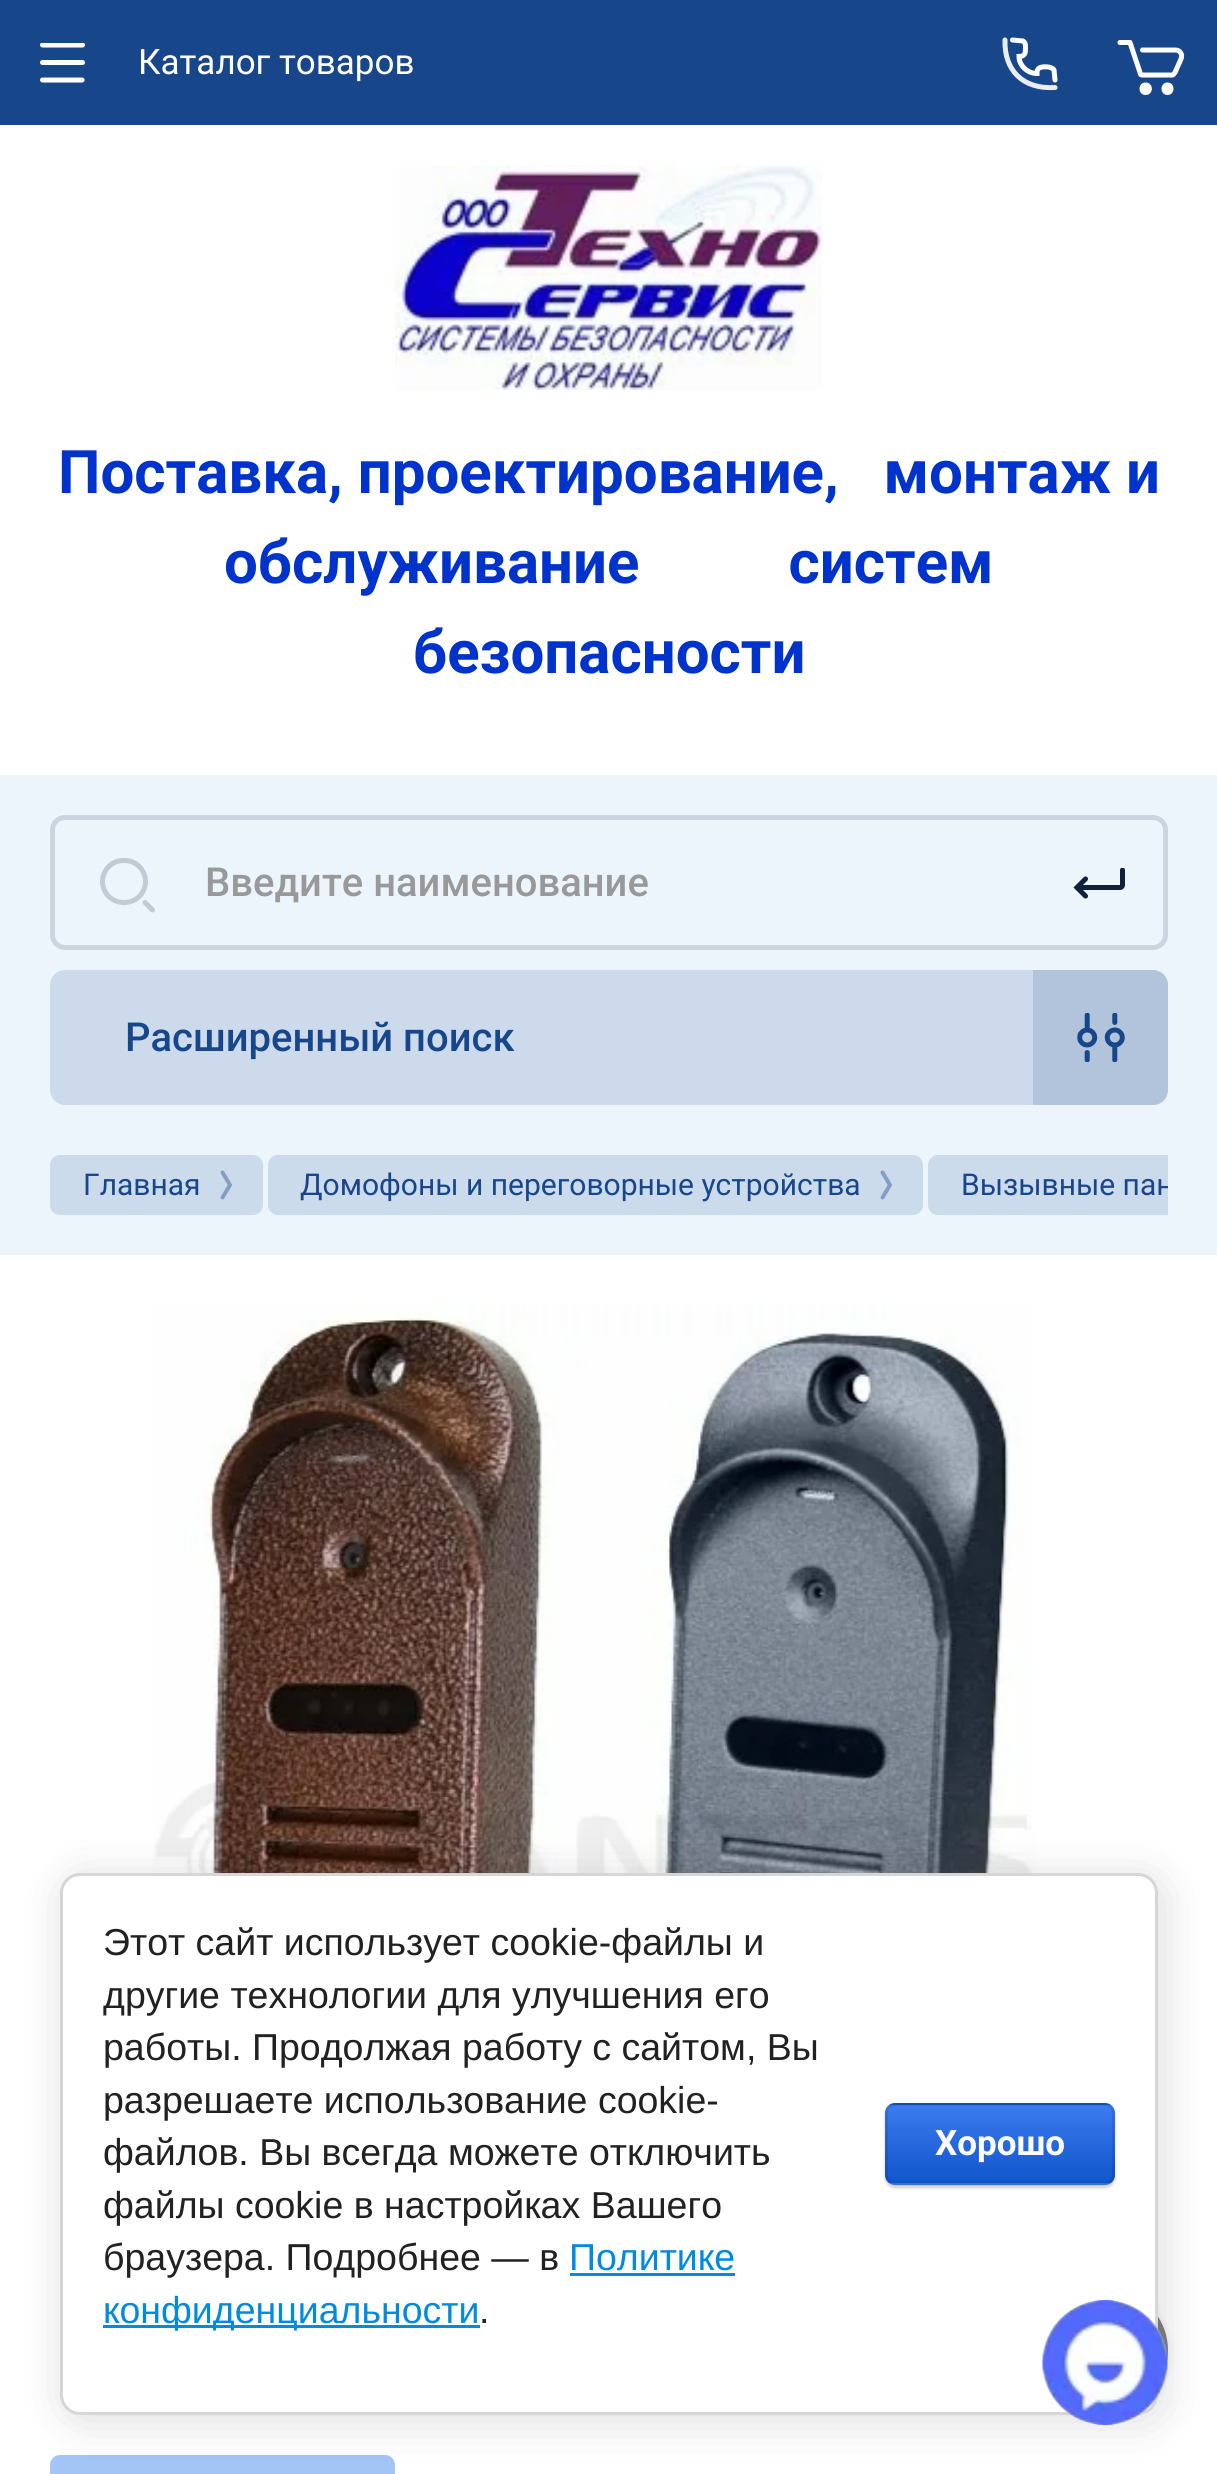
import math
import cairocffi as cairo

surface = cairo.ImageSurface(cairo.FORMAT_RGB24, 1217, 2474)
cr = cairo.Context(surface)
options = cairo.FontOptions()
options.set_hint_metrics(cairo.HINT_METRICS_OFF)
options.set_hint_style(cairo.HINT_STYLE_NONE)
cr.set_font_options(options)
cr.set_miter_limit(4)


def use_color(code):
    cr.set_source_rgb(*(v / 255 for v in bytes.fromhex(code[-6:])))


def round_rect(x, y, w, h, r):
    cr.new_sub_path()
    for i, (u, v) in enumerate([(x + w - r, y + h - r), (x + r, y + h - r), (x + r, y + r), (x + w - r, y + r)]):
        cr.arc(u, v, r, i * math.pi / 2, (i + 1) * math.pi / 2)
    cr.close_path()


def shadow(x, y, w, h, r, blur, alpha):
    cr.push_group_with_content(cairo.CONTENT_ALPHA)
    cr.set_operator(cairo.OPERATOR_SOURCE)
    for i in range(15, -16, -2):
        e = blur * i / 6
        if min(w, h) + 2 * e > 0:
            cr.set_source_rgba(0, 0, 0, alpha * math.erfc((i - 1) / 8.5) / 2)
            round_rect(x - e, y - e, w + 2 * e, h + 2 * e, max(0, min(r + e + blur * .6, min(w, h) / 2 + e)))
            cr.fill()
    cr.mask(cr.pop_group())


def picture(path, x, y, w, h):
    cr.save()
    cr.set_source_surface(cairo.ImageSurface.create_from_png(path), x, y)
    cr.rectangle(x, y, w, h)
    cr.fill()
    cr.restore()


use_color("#ecf5fc")
cr.paint()
use_color("#17468a")
cr.rectangle(0, 0, 1217, 125)
cr.fill()
picture("img1.png", 40, 43, 45, 40)
cr.select_font_face("Roboto")
cr.set_font_size(35)
use_color("#ffffff")
cr.move_to(138, 74)
cr.show_text("Каталог товаров")
cr.new_path()
cr.move_to(1005, 40)
cr.curve_to(1004, 70, 1022.5, 89.5, 1055, 87.5)
use_color("#e8edf3")
cr.set_line_width(5)
cr.set_line_cap(cairo.LINE_CAP_ROUND)
cr.stroke()
cr.new_path()
cr.move_to(1055, 80)
cr.line_to(1054, 70)
cr.curve_to(1052, 66, 1041, 66, 1038.5, 68.5)
cr.curve_to(1037, 70, 1037, 72, 1037, 73.5)
cr.curve_to(1027.5, 73.5, 1019, 65.5, 1019, 56.5)
cr.curve_to(1025.5, 56.5, 1025.5, 52.5, 1025.5, 47.5)
cr.curve_to(1025.5, 45, 1025.5, 42.5, 1023, 41)
cr.line_to(1012.5, 40)
use_color("#ffffff")
cr.stroke()
cr.set_fill_rule(cairo.FILL_RULE_EVEN_ODD)
cr.new_path()
cr.move_to(1145.5, 82.5)
cr.curve_to(1137.5, 82.5, 1137.5, 95, 1145.5, 95)
cr.curve_to(1154, 95, 1154, 82.5, 1145.5, 82.5)
cr.close_path()
cr.move_to(1167.5, 82.5)
cr.curve_to(1159.5, 82.5, 1159.5, 95, 1167.5, 95)
cr.curve_to(1175.5, 95, 1175.5, 82.5, 1167.5, 82.5)
cr.close_path()
cr.fill()
cr.new_path()
cr.move_to(1120, 42.5)
cr.line_to(1130, 42.5)
cr.line_to(1140, 72.5)
cr.curve_to(1140.5, 74.5, 1140.5, 75, 1142.5, 75)
cr.line_to(1172.5, 75)
cr.curve_to(1173.5, 75, 1173.5, 74, 1175, 72.5)
cr.line_to(1181, 59)
cr.curve_to(1183, 54.5, 1180, 50, 1175.5, 50)
cr.line_to(1142.5, 50)
cr.set_line_join(cairo.LINE_JOIN_ROUND)
cr.stroke()
cr.rectangle(0, 125, 1217, 650)
cr.fill()
picture("img2.png", 395, 165, 428, 225)
cr.select_font_face("Roboto", cairo.FONT_SLANT_NORMAL, cairo.FONT_WEIGHT_BOLD)
cr.set_font_size(60)
use_color("#0033cc")
cr.move_to(58, 493)
cr.show_text("Поставка, проектирование,   монтаж и")
cr.move_to(224, 583)
cr.show_text("обслуживание          систем")
cr.move_to(413, 673)
cr.show_text("безопасности")
round_rect(52.5, 817.5, 1113, 130, 12.5)
use_color("#cbd5df")
cr.set_line_cap(cairo.LINE_CAP_BUTT)
cr.set_line_join(cairo.LINE_JOIN_MITER)
cr.stroke()
round_rect(102.5, 860.5, 43, 42, 21)
use_color("#c0cbd5")
cr.stroke()
cr.new_path()
cr.move_to(145, 902.5)
cr.line_to(152.5, 910)
cr.set_line_cap(cairo.LINE_CAP_ROUND)
cr.stroke()
cr.select_font_face("Roboto Medium")
cr.set_font_size(40)
use_color("#999999")
cr.move_to(205, 896)
cr.show_text("Введите наименование")
picture("img3.png", 1073, 868, 52, 31)
use_color("#ccdaeb")
round_rect(50, 970, 1118, 135, 15)
cr.fill()
use_color("#17468a")
cr.move_to(125, 1051)
cr.show_text("Расширенный поиск")
cr.set_source_rgba(0.09, 0.275, 0.541, 0.15)
cr.new_path()
cr.move_to(1033, 970)
cr.line_to(1153, 970)
cr.curve_to(1161.5, 970, 1168, 976.5, 1168, 985)
cr.line_to(1168, 1090)
cr.curve_to(1168, 1098.5, 1161.5, 1105, 1153, 1105)
cr.line_to(1033, 1105)
cr.close_path()
cr.fill()
picture("img4.png", 1077, 1013, 48, 50)
use_color("#ccdbeb")
round_rect(50, 1155, 213, 60, 10)
cr.fill()
cr.select_font_face("Roboto")
cr.set_font_size(30)
use_color("#17468a")
cr.move_to(83, 1195)
cr.show_text("Главная")
picture("img5.png", 220, 1170, 13, 30)
use_color("#ccdbeb")
round_rect(268, 1155, 655, 60, 10)
cr.fill()
use_color("#17468a")
cr.move_to(300, 1195)
cr.show_text("Домофоны и переговорные устройства")
picture("img5.png", 880, 1170, 13, 30)
use_color("#ccdbeb")
cr.new_path()
cr.move_to(938, 1155)
cr.line_to(1168, 1155)
cr.line_to(1168, 1215)
cr.line_to(938, 1215)
cr.curve_to(932.5, 1215, 928, 1210.5, 928, 1205)
cr.line_to(928, 1165)
cr.curve_to(928, 1159.5, 932.5, 1155, 938, 1155)
cr.close_path()
cr.fill()
cr.save()
cr.set_fill_rule(cairo.FILL_RULE_WINDING)
cr.rectangle(50, 1155, 1118, 60)
cr.clip()
use_color("#17468a")
cr.move_to(961, 1195)
cr.show_text("Вызывные пан")
cr.restore()
use_color("#ffffff")
cr.rectangle(0, 1255, 1217, 1219)
cr.fill()
picture("img6.png", 153, 1305, 881, 568)
use_color("#a2c5f6")
round_rect(50, 2455, 345, 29, 10)
cr.fill()
cr.save()
cr.new_path()
cr.move_to(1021, 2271)
cr.line_to(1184, 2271)
cr.line_to(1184, 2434)
cr.line_to(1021, 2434)
cr.close_path()
cr.move_to(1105.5, 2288)
cr.curve_to(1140, 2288, 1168, 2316, 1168, 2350.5)
cr.curve_to(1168, 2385, 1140, 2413, 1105.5, 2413)
cr.curve_to(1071, 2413, 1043, 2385, 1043, 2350.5)
cr.curve_to(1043, 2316, 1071, 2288, 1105.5, 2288)
cr.close_path()
cr.clip()
use_color("#000000")
shadow(1040, 2290, 125, 125, 62.5, 6, 0.15)
cr.restore()
cr.set_source_rgba(0, 0, 0, 0.5)
cr.arc(1105.5, 2350.5, 62.5, 0, 2 * math.pi)
cr.fill()
use_color("#000000")
shadow(65, 1878, 1098, 542, 20, 22.5, 0.14)
use_color("#ffffff")
round_rect(61.5, 1874.5, 1095, 539, 18.5)
cr.fill_preserve()
use_color("#d6d6d6")
cr.set_line_width(3)
cr.set_line_cap(cairo.LINE_CAP_BUTT)
cr.stroke()
cr.select_font_face("Liberation Sans")
cr.set_font_size(37.5)
use_color("#212121")
cr.move_to(103, 1955)
cr.show_text("Этот сайт использует cookie-файлы и")
cr.move_to(103, 2008)
cr.show_text("другие технологии для улучшения его")
cr.move_to(103, 2060)
cr.show_text("работы. Продолжая работу с сайтом, Вы")
cr.move_to(103, 2113)
cr.show_text("разрешаете использование cookie-")
cr.move_to(103, 2165)
cr.show_text("файлов. Вы всегда можете отключить")
cr.move_to(103, 2218)
cr.show_text("файлы cookie в настройках Вашего")
cr.move_to(103, 2270)
cr.show_text("браузера. Подробнее — в")
use_color("#008be1")
cr.move_to(569, 2270)
cr.show_text("Политике")
cr.rectangle(570, 2273, 165, 3)
cr.fill()
cr.rectangle(103, 2325, 377, 3)
cr.fill()
cr.move_to(103, 2323)
cr.show_text("конфиденциальности")
use_color("#212121")
cr.move_to(479, 2323)
cr.show_text(".")
use_color("#000000")
shadow(885, 2105, 230, 83, 10, 1.5, 0.2)
cr.save()
cr.set_fill_rule(cairo.FILL_RULE_WINDING)
round_rect(885, 2103, 230, 82, 10)
cr.clip()
gradient = cairo.LinearGradient(1000, 2028, 1000, 2105)
gradient.add_color_stop_rgba(0, 0.231, 0.486, 0.937, 1)
gradient.add_color_stop_rgba(1, 0.067, 0.333, 0.8, 1)
cr.set_source(gradient)
cr.rectangle(885, 2103, 230, 2)
cr.fill()
gradient = cairo.LinearGradient(1000, 2105, 1000, 2183)
gradient.add_color_stop_rgba(0, 0.231, 0.486, 0.937, 1)
gradient.add_color_stop_rgba(1, 0.067, 0.333, 0.8, 1)
cr.set_source(gradient)
cr.rectangle(885, 2105, 230, 78)
cr.fill()
gradient = cairo.LinearGradient(1000, 2183, 1000, 2260)
gradient.add_color_stop_rgba(0, 0.231, 0.486, 0.937, 1)
gradient.add_color_stop_rgba(1, 0.067, 0.333, 0.8, 1)
cr.set_source(gradient)
cr.rectangle(885, 2183, 230, 2)
cr.fill()
cr.restore()
round_rect(886.5, 2104.5, 227, 79, 8.5)
cr.set_source_rgba(0, 0, 0, 0.1)
cr.stroke()
cr.select_font_face("Roboto", cairo.FONT_SLANT_NORMAL, cairo.FONT_WEIGHT_BOLD)
cr.set_font_size(35)
use_color("#ffffff")
cr.move_to(935, 2155)
cr.show_text("Хорошо")
picture("img7.png", 1042, 2300, 126, 125)
surface.write_to_png("result.png")
